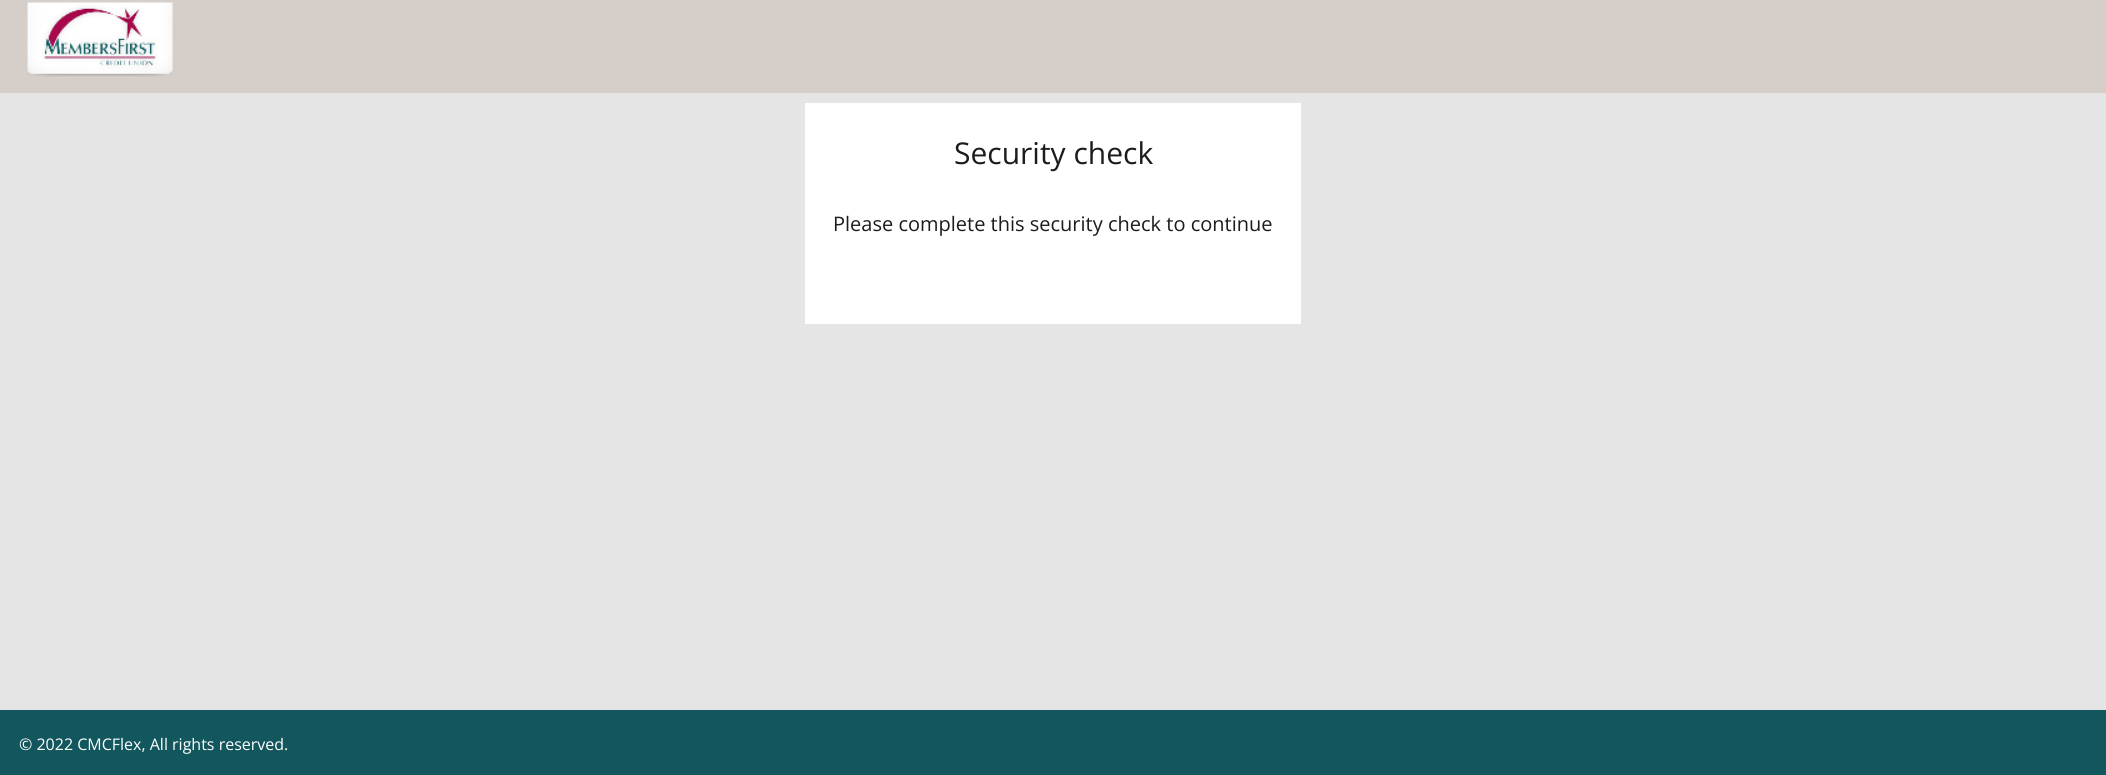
import math
import cairocffi as cairo

surface = cairo.ImageSurface(cairo.FORMAT_RGB24, 2106, 775)
cr = cairo.Context(surface)
options = cairo.FontOptions()
options.set_hint_metrics(cairo.HINT_METRICS_OFF)
options.set_hint_style(cairo.HINT_STYLE_NONE)
cr.set_font_options(options)
cr.set_miter_limit(4)


def use_color(code):
    cr.set_source_rgb(*(v / 255 for v in bytes.fromhex(code[-6:])))


def picture(path, x, y, w, h):
    cr.save()
    cr.set_source_surface(cairo.ImageSurface.create_from_png(path), x, y)
    cr.rectangle(x, y, w, h)
    cr.fill()
    cr.restore()


use_color("#e5e5e5")
cr.paint()
use_color("#d5cec9")
cr.rectangle(0, 0, 2106, 93)
cr.fill()
picture("img1.png", 27, 2, 146, 75)
use_color("#ffffff")
cr.rectangle(805, 103, 496, 221)
cr.fill()
cr.select_font_face("Open Sans")
cr.set_font_size(30)
use_color("#1c1c1c")
cr.move_to(954, 164)
cr.show_text("Security check")
cr.set_font_size(20)
cr.move_to(833, 231)
cr.show_text("Please complete this security check to continue")
use_color("#12565e")
cr.rectangle(0, 710, 2106, 65)
cr.fill()
cr.set_font_size(16)
use_color("#ffffff")
cr.move_to(19, 750)
cr.show_text("© 2022 CMCFlex, All rights reserved.")
surface.write_to_png("result.png")
